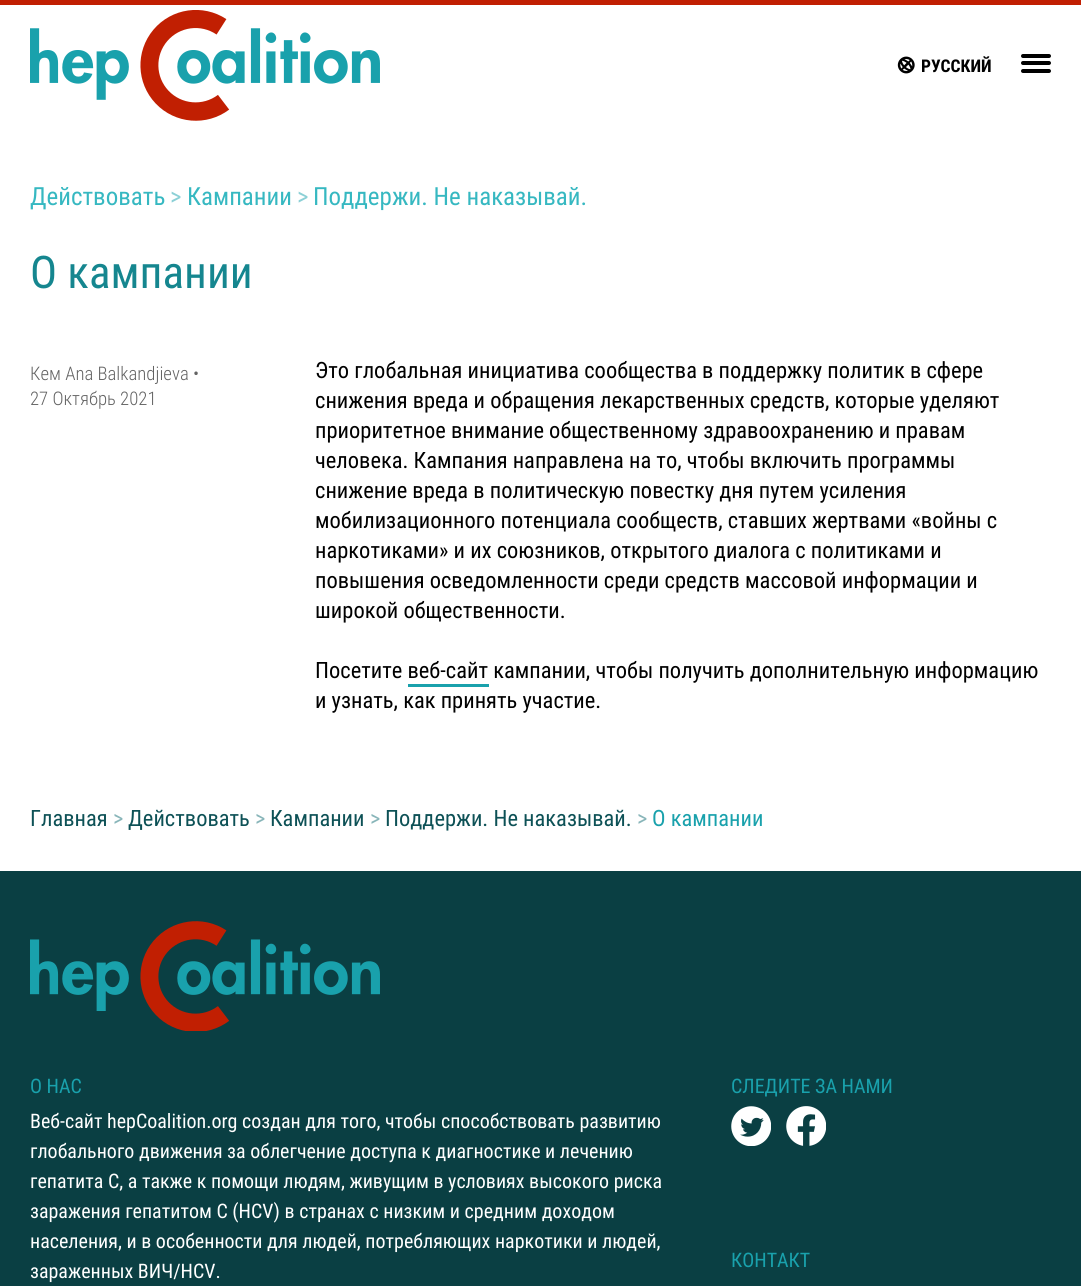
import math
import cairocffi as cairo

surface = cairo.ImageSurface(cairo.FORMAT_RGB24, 1081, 1286)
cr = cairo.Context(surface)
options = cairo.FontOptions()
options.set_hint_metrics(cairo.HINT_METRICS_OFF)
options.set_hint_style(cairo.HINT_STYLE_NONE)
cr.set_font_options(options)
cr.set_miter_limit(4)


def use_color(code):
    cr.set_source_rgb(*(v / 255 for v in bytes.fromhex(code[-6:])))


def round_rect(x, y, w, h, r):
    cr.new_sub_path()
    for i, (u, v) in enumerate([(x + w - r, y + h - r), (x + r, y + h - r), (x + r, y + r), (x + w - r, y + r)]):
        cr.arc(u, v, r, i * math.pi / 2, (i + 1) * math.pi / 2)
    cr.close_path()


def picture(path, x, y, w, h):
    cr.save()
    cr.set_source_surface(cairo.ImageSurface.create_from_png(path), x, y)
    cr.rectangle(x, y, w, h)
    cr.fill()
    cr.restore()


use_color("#ffffff")
cr.paint()
use_color("#c11f02")
cr.rectangle(0, 0, 1081, 5)
cr.fill()
picture("img1.png", 30, 10, 350, 111)
picture("img2.png", 897, 56, 18, 18)
cr.select_font_face("Roboto Condensed", cairo.FONT_SLANT_NORMAL, cairo.FONT_WEIGHT_BOLD)
cr.set_font_size(17.5)
use_color("#000000")
cr.move_to(921, 72)
cr.show_text("РУССКИЙ")
round_rect(1021, 61, 30, 4, 2)
cr.fill()
round_rect(1021, 54, 30, 4, 2)
cr.fill()
round_rect(1021, 69, 30, 4, 2)
cr.fill()
cr.select_font_face("Roboto Condensed")
cr.set_font_size(25)
use_color("#36b8c1")
cr.move_to(30, 205)
cr.show_text("Действовать")
use_color("#8cd0d6")
cr.move_to(170, 205)
cr.show_text(">")
use_color("#36b8c1")
cr.move_to(187, 205)
cr.show_text("Кампании")
use_color("#8cd0d6")
cr.move_to(297, 205)
cr.show_text(">")
use_color("#36b8c1")
cr.move_to(313, 205)
cr.show_text("Поддержи. Не наказывай.")
cr.set_font_size(45)
use_color("#15868f")
cr.move_to(30, 288)
cr.show_text("О кампании")
cr.select_font_face("Roboto Condensed Light")
cr.set_font_size(18.75)
use_color("#636363")
cr.move_to(30, 380)
cr.show_text("Кем Ana Balkandjieva •")
cr.move_to(30, 405)
cr.show_text("27 Октябрь 2021")
cr.select_font_face("Roboto Condensed")
cr.set_font_size(22.5)
use_color("#000000")
cr.move_to(315, 378)
cr.show_text("Это глобальная инициатива сообщества в поддержку политик в сфере")
cr.move_to(315, 408)
cr.show_text("снижения вреда и обращения лекарственных средств, которые уделяют")
cr.move_to(315, 438)
cr.show_text("приоритетное внимание общественному здравоохранению и правам")
cr.move_to(315, 468)
cr.show_text("человека. Кампания направлена на то, чтобы включить программы")
cr.move_to(315, 498)
cr.show_text("снижение вреда в политическую повестку дня путем усиления")
cr.move_to(315, 528)
cr.show_text("мобилизационного потенциала сообществ, ставших жертвами «войны с")
cr.move_to(315, 558)
cr.show_text("наркотиками» и их союзников, открытого диалога с политиками и")
cr.move_to(315, 588)
cr.show_text("повышения осведомленности среди средств массовой информации и")
cr.move_to(315, 618)
cr.show_text("широкой общественности.")
cr.move_to(315, 678)
cr.show_text("Посетите веб-сайт кампании, чтобы получить дополнительную информацию")
use_color("#19a1ac")
cr.rectangle(408, 684, 81, 3)
cr.fill()
use_color("#000000")
cr.move_to(315, 708)
cr.show_text("и узнать, как принять участие.")
use_color("#0d5156")
cr.move_to(30, 826)
cr.show_text("Главная")
use_color("#88b5b9")
cr.move_to(113, 826)
cr.show_text(">")
use_color("#0d5156")
cr.move_to(128, 826)
cr.show_text("Действовать")
use_color("#88b5b9")
cr.move_to(255, 826)
cr.show_text(">")
use_color("#0d5156")
cr.move_to(270, 826)
cr.show_text("Кампании")
use_color("#88b5b9")
cr.move_to(370, 826)
cr.show_text(">")
use_color("#0d5156")
cr.move_to(385, 826)
cr.show_text("Поддержи. Не наказывай.")
use_color("#88b5b9")
cr.move_to(637, 826)
cr.show_text(">")
use_color("#19a1ac")
cr.move_to(652, 826)
cr.show_text("О кампании")
use_color("#0a3f43")
cr.rectangle(0, 871, 1081, 415)
cr.fill()
picture("img3.png", 30, 921, 350, 110)
cr.set_font_size(20)
use_color("#19a1ac")
cr.move_to(30, 1093)
cr.show_text("О НАС")
use_color("#ffffff")
cr.move_to(30, 1128)
cr.show_text("Веб-сайт hepCoalition.org создан для того, чтобы способствовать развитию")
cr.move_to(30, 1158)
cr.show_text("глобального движения за облегчение доступа к диагностике и лечению")
cr.move_to(30, 1188)
cr.show_text("гепатита С, а также к помощи людям, живущим в условиях высокого риска")
cr.move_to(30, 1218)
cr.show_text("заражения гепатитом С (HCV) в странах с низким и средним доходом")
cr.move_to(30, 1248)
cr.show_text("населения, и в особенности для людей, потребляющих наркотики и людей,")
cr.move_to(30, 1278)
cr.show_text("зараженных ВИЧ/HCV.")
use_color("#19a1ac")
cr.move_to(731, 1093)
cr.show_text("СЛЕДИТЕ ЗА НАМИ")
picture("img4.png", 731, 1106, 40, 40)
picture("img5.png", 786, 1106, 40, 40)
cr.move_to(731, 1267)
cr.show_text("КОНТАКТ")
surface.write_to_png("result.png")
